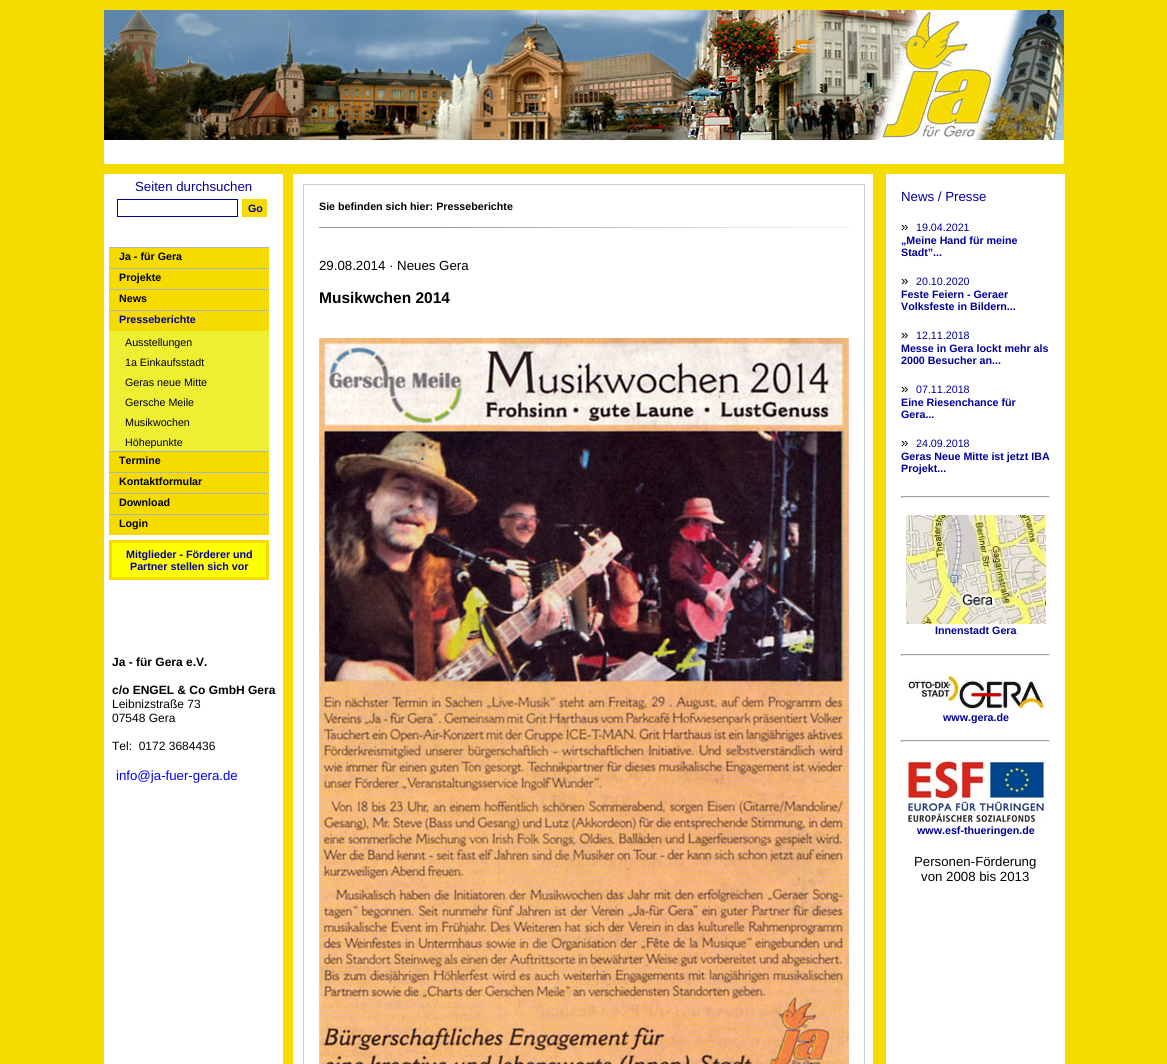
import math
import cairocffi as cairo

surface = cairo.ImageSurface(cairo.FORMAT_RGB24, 1167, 1064)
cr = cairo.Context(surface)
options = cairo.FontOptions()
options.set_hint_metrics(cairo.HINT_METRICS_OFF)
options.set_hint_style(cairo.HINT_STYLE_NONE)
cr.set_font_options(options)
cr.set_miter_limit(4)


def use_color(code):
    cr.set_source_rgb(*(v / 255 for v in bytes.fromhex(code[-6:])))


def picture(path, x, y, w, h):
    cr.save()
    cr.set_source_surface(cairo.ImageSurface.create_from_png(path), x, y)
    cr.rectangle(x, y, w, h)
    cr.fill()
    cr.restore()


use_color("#f5db00")
cr.paint()
picture("img1.png", 104, 10, 960, 130)
use_color("#ffffff")
cr.rectangle(104, 140, 960, 24)
cr.fill()
cr.rectangle(104, 174, 179, 890)
cr.fill()
cr.select_font_face("Liberation Sans")
cr.set_font_size(13.25)
use_color("#000099")
cr.move_to(135, 191)
cr.show_text("Seiten durchsuchen")
cr.rectangle(117.5, 199.5, 120, 17)
cr.set_line_width(1)
cr.stroke()
use_color("#f5db00")
cr.rectangle(242, 199, 25, 18)
cr.fill()
cr.select_font_face("Liberation Sans", cairo.FONT_SLANT_NORMAL, cairo.FONT_WEIGHT_BOLD)
cr.set_font_size(10.7)
use_color("#000099")
cr.move_to(248, 212)
cr.show_text("Go")
use_color("#f5db00")
cr.rectangle(109, 248, 160, 20)
cr.fill()
use_color("#aab7c0")
cr.rectangle(109, 247, 160, 1)
cr.fill()
use_color("#000000")
cr.move_to(119, 260)
cr.show_text("Ja - für Gera")
use_color("#f5db00")
cr.rectangle(109, 269, 160, 20)
cr.fill()
use_color("#aab7c0")
cr.rectangle(109, 268, 160, 1)
cr.fill()
use_color("#000000")
cr.move_to(119, 281)
cr.show_text("Projekte")
use_color("#f5db00")
cr.rectangle(109, 290, 160, 20)
cr.fill()
use_color("#aab7c0")
cr.rectangle(109, 289, 160, 1)
cr.fill()
use_color("#000000")
cr.move_to(119, 302)
cr.show_text("News")
use_color("#f5db00")
cr.rectangle(109, 311, 160, 20)
cr.fill()
use_color("#aab7c0")
cr.rectangle(109, 310, 160, 1)
cr.fill()
use_color("#000099")
cr.move_to(119, 323)
cr.show_text("Presseberichte")
use_color("#eeee33")
cr.rectangle(109, 331, 160, 120)
cr.fill()
cr.select_font_face("Liberation Sans")
use_color("#000000")
cr.move_to(125, 346)
cr.show_text("Ausstellungen")
cr.move_to(125, 366)
cr.show_text("1a Einkaufsstadt")
cr.move_to(125, 386)
cr.show_text("Geras neue Mitte")
cr.move_to(125, 406)
cr.show_text("Gersche Meile")
cr.move_to(125, 426)
cr.show_text("Musikwochen")
cr.move_to(125, 446)
cr.show_text("Höhepunkte")
use_color("#f5db00")
cr.rectangle(109, 452, 160, 20)
cr.fill()
use_color("#aab7c0")
cr.rectangle(109, 451, 160, 1)
cr.fill()
cr.select_font_face("Liberation Sans", cairo.FONT_SLANT_NORMAL, cairo.FONT_WEIGHT_BOLD)
use_color("#000000")
cr.move_to(119, 464)
cr.show_text("Termine")
use_color("#f5db00")
cr.rectangle(109, 473, 160, 20)
cr.fill()
use_color("#aab7c0")
cr.rectangle(109, 472, 160, 1)
cr.fill()
use_color("#000000")
cr.move_to(119, 485)
cr.show_text("Kontaktformular")
use_color("#f5db00")
cr.rectangle(109, 494, 160, 20)
cr.fill()
use_color("#aab7c0")
cr.rectangle(109, 493, 160, 1)
cr.fill()
use_color("#000000")
cr.move_to(119, 506)
cr.show_text("Download")
use_color("#f5db00")
cr.rectangle(109, 515, 160, 20)
cr.fill()
use_color("#aab7c0")
cr.rectangle(109, 514, 160, 1)
cr.fill()
use_color("#000000")
cr.move_to(119, 527)
cr.show_text("Login")
use_color("#ffff00")
cr.rectangle(110.5, 541.5, 157, 37)
cr.fill_preserve()
use_color("#f5db00")
cr.set_line_width(3)
cr.stroke()
use_color("#000099")
cr.move_to(126, 558)
cr.show_text("Mitglieder - Förderer und")
cr.move_to(130, 570)
cr.show_text("Partner stellen sich vor")
cr.set_font_size(12)
use_color("#000000")
cr.move_to(112, 666)
cr.show_text("Ja - für Gera e.V.")
cr.move_to(112, 694)
cr.show_text("c/o ENGEL & Co GmbH Gera")
cr.select_font_face("Liberation Sans")
cr.move_to(112, 708)
cr.show_text("Leibnizstraße 73")
cr.move_to(112, 722)
cr.show_text("07548 Gera")
cr.move_to(112, 750)
cr.show_text("Tel:  0172 3684436")
cr.set_font_size(13.25)
use_color("#0000ff")
cr.move_to(116, 780)
cr.show_text("info@ja-fuer-gera.de")
use_color("#ffffff")
cr.rectangle(293, 174, 580, 890)
cr.fill()
cr.rectangle(303.5, 184.5, 561, 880)
use_color("#cccccc")
cr.set_line_width(1)
cr.stroke()
cr.select_font_face("Liberation Sans", cairo.FONT_SLANT_NORMAL, cairo.FONT_WEIGHT_BOLD)
cr.set_font_size(10.7)
use_color("#000000")
cr.move_to(319, 210)
cr.show_text("Sie befinden sich hier: Presseberichte")
picture("img2.png", 319, 227, 530, 1)
cr.select_font_face("Liberation Sans")
cr.set_font_size(13.25)
cr.move_to(319, 270)
cr.show_text("29.08.2014 · Neues Gera")
cr.select_font_face("Liberation Sans", cairo.FONT_SLANT_NORMAL, cairo.FONT_WEIGHT_BOLD)
cr.set_font_size(15.5)
cr.move_to(319, 303)
cr.show_text("Musikwchen 2014")
picture("img3.png", 319, 338, 530, 726)
use_color("#ffffff")
cr.rectangle(886, 174, 179, 890)
cr.fill()
cr.select_font_face("Liberation Sans")
cr.set_font_size(13.25)
use_color("#000099")
cr.move_to(901, 201)
cr.show_text("News / Presse")
use_color("#000000")
cr.move_to(901, 231)
cr.show_text("»")
cr.set_font_size(10.7)
use_color("#000099")
cr.move_to(916, 231)
cr.show_text("19.04.2021")
cr.select_font_face("Liberation Sans", cairo.FONT_SLANT_NORMAL, cairo.FONT_WEIGHT_BOLD)
cr.move_to(901, 244)
cr.show_text("„Meine Hand für meine")
cr.move_to(901, 256)
cr.show_text("Stadt”...")
cr.select_font_face("Liberation Sans")
cr.set_font_size(13.25)
use_color("#000000")
cr.move_to(901, 285)
cr.show_text("»")
cr.set_font_size(10.7)
use_color("#000099")
cr.move_to(916, 285)
cr.show_text("20.10.2020")
cr.select_font_face("Liberation Sans", cairo.FONT_SLANT_NORMAL, cairo.FONT_WEIGHT_BOLD)
cr.move_to(901, 298)
cr.show_text("Feste Feiern - Geraer")
cr.move_to(901, 310)
cr.show_text("Volksfeste in Bildern...")
cr.select_font_face("Liberation Sans")
cr.set_font_size(13.25)
use_color("#000000")
cr.move_to(901, 339)
cr.show_text("»")
cr.set_font_size(10.7)
use_color("#000099")
cr.move_to(916, 339)
cr.show_text("12.11.2018")
cr.select_font_face("Liberation Sans", cairo.FONT_SLANT_NORMAL, cairo.FONT_WEIGHT_BOLD)
cr.move_to(901, 352)
cr.show_text("Messe in Gera lockt mehr als")
cr.move_to(901, 364)
cr.show_text("2000 Besucher an...")
cr.select_font_face("Liberation Sans")
cr.set_font_size(13.25)
use_color("#000000")
cr.move_to(901, 393)
cr.show_text("»")
cr.set_font_size(10.7)
use_color("#000099")
cr.move_to(916, 393)
cr.show_text("07.11.2018")
cr.select_font_face("Liberation Sans", cairo.FONT_SLANT_NORMAL, cairo.FONT_WEIGHT_BOLD)
cr.move_to(901, 406)
cr.show_text("Eine Riesenchance für")
cr.move_to(901, 418)
cr.show_text("Gera...")
cr.select_font_face("Liberation Sans")
cr.set_font_size(13.25)
use_color("#000000")
cr.move_to(901, 447)
cr.show_text("»")
cr.set_font_size(10.7)
use_color("#000099")
cr.move_to(916, 447)
cr.show_text("24.09.2018")
cr.select_font_face("Liberation Sans", cairo.FONT_SLANT_NORMAL, cairo.FONT_WEIGHT_BOLD)
cr.move_to(901, 460)
cr.show_text("Geras Neue Mitte ist jetzt IBA")
cr.move_to(901, 472)
cr.show_text("Projekt...")
use_color("#9f9f9f")
cr.rectangle(901, 496, 149, 1)
cr.fill()
use_color("#eeeeee")
cr.rectangle(1049, 496, 1, 2)
cr.fill()
cr.rectangle(901, 497, 149, 1)
cr.fill()
use_color("#9f9f9f")
cr.rectangle(901, 496, 1, 2)
cr.fill()
picture("img4.png", 906, 515, 140, 109)
use_color("#000099")
cr.move_to(935, 634)
cr.show_text("Innenstadt Gera")
use_color("#9f9f9f")
cr.rectangle(901, 654, 149, 1)
cr.fill()
use_color("#eeeeee")
cr.rectangle(1049, 654, 1, 2)
cr.fill()
cr.rectangle(901, 655, 149, 1)
cr.fill()
use_color("#9f9f9f")
cr.rectangle(901, 654, 1, 2)
cr.fill()
picture("img5.png", 906, 674, 140, 37)
use_color("#000099")
cr.move_to(943, 721)
cr.show_text("www.gera.de")
use_color("#9f9f9f")
cr.rectangle(901, 740, 149, 1)
cr.fill()
use_color("#eeeeee")
cr.rectangle(1049, 740, 1, 2)
cr.fill()
cr.rectangle(901, 741, 149, 1)
cr.fill()
use_color("#9f9f9f")
cr.rectangle(901, 740, 1, 2)
cr.fill()
picture("img6.png", 907, 760, 138, 63)
use_color("#000099")
cr.move_to(917, 834)
cr.show_text("www.esf-thueringen.de")
cr.select_font_face("Liberation Sans")
cr.set_font_size(13.25)
use_color("#000000")
cr.move_to(914, 866)
cr.show_text("Personen-Förderung")
cr.move_to(921, 881)
cr.show_text("von 2008 bis 2013")
surface.write_to_png("result.png")
